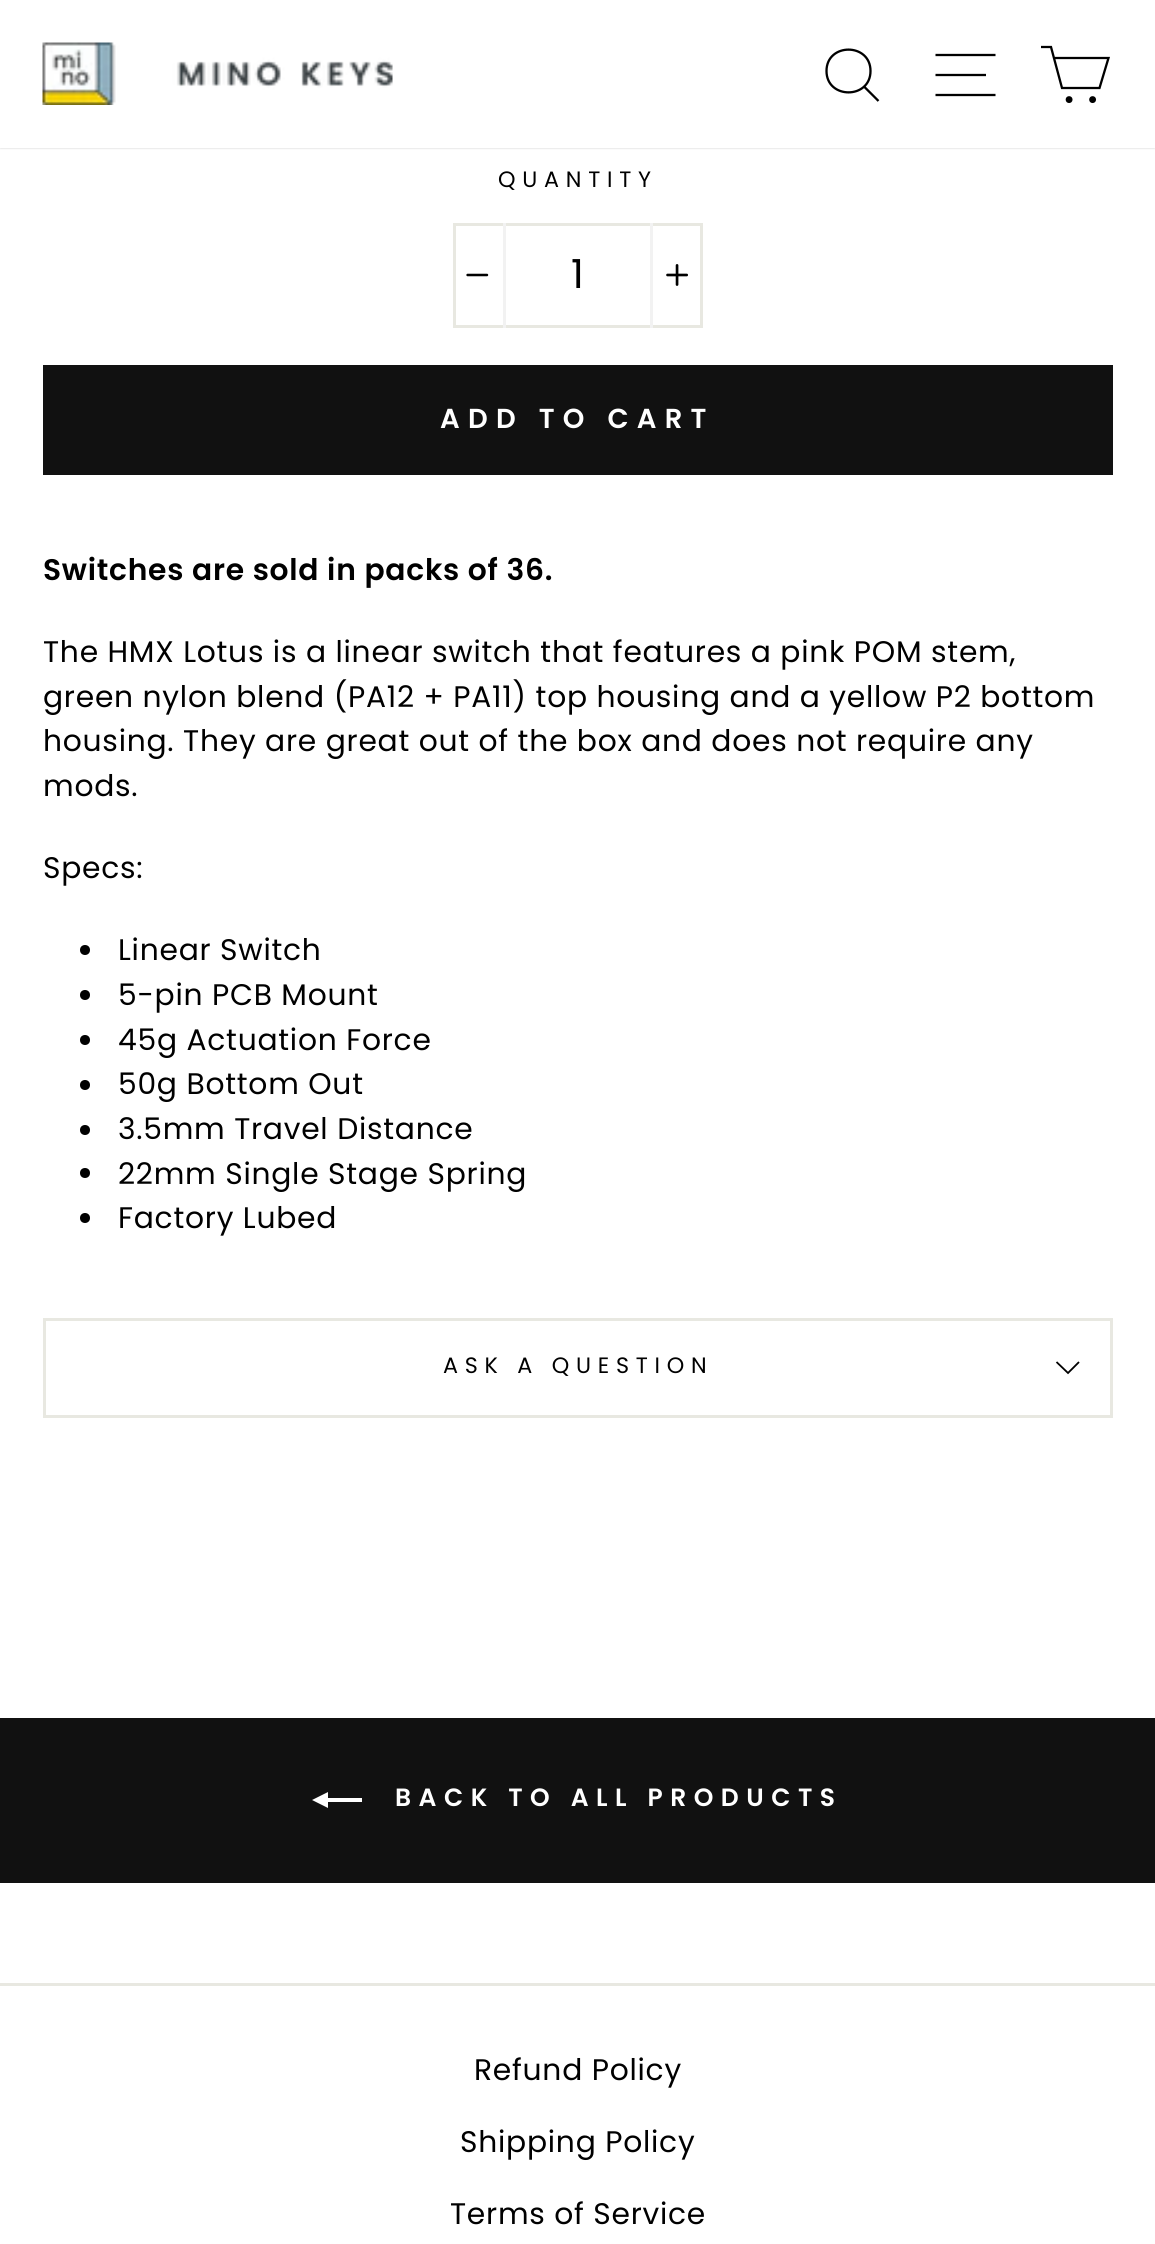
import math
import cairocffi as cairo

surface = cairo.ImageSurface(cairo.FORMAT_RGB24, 1155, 2244)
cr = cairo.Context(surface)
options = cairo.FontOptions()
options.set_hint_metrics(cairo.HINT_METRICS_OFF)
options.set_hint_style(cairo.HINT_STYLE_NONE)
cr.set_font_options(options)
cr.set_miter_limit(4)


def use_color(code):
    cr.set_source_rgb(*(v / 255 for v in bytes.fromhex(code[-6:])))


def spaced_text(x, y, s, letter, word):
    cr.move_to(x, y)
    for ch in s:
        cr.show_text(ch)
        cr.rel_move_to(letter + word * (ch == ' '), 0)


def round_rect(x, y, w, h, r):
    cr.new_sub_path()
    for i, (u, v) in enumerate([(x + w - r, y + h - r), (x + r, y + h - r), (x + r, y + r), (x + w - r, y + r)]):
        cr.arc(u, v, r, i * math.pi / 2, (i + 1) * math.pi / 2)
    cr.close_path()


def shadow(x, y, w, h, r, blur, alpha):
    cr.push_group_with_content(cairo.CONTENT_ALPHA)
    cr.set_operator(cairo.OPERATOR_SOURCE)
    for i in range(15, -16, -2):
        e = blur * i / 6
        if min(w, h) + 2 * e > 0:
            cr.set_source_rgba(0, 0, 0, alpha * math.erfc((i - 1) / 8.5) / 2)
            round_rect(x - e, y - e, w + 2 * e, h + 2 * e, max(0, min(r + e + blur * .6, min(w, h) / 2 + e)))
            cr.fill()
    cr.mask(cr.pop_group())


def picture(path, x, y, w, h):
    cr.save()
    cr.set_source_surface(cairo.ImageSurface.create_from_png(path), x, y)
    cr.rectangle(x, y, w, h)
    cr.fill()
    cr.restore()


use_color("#ffffff")
cr.paint()
use_color("#000000")
shadow(0, 0, 1155, 148, 0, 1, 0.2)
use_color("#ffffff")
cr.rectangle(0, 0, 1155, 148)
cr.fill()
picture("img1.png", 42, 42, 351, 63)
cr.new_path()
cr.move_to(870.5, 71)
cr.curve_to(870.5, 99.5, 826.5, 99.5, 826.5, 71)
cr.curve_to(826.5, 42.5, 870.5, 42.5, 870.5, 71)
cr.close_path()
cr.move_to(878.5, 101)
cr.line_to(864, 86.5)
use_color("#000000")
cr.set_line_width(2.3)
cr.stroke()
cr.new_path()
cr.move_to(935.5, 55)
cr.line_to(995.5, 55)
cr.move_to(935.5, 75)
cr.line_to(986, 75)
cr.move_to(935.5, 95)
cr.line_to(995.5, 95)
cr.stroke()
cr.new_path()
cr.move_to(1054, 58)
cr.line_to(1108.5, 58)
cr.line_to(1099.5, 88)
cr.line_to(1062, 88)
cr.line_to(1051, 47)
cr.line_to(1041, 47)
cr.stroke()
cr.arc(1069.1, 99.6, 2.3, 0, 2 * math.pi)
cr.fill_preserve()
cr.stroke()
cr.arc(1092.6, 99.6, 2.3, 0, 2 * math.pi)
cr.fill_preserve()
cr.stroke()
cr.select_font_face("Poppins")
cr.set_font_size(22.25)
spaced_text(498, 187, "QUANTITY", 6.75, 0)
cr.rectangle(454.5, 224.5, 247, 102)
use_color("#e8e8e1")
cr.set_line_width(3)
cr.stroke()
use_color("#f2f2f2")
cr.rectangle(503, 223, 3, 105)
cr.fill()
picture("img2.png", 466, 273, 23, 4)
cr.set_font_size(40)
use_color("#000000")
spaced_text(571, 288, "1", 1, 0)
use_color("#f2f2f2")
cr.rectangle(650, 223, 3, 105)
cr.fill()
picture("img3.png", 666, 264, 22, 22)
use_color("#111111")
cr.rectangle(43, 365, 1070, 110)
cr.fill()
cr.select_font_face("Poppins SemiBold")
cr.set_font_size(27.5)
use_color("#ffffff")
spaced_text(440, 428, "ADD TO CART", 8.25, 0)
cr.set_font_size(29.75)
use_color("#000000")
spaced_text(43, 580, "Switches are sold in packs of 36.", 0.75, 0)
cr.select_font_face("Poppins")
spaced_text(43, 662, "The HMX Lotus is a linear switch that features a pink POM stem,", 0.75, 0)
spaced_text(43, 707, "green nylon blend (PA12 + PA11) top housing and a yellow P2 bottom", 0.75, 0)
spaced_text(43, 751, "housing. They are great out of the box and does not require any", 0.75, 0)
spaced_text(43, 796, "mods.", 0.75, 0)
spaced_text(43, 878, "Specs:", 0.75, 0)
cr.new_path()
cr.arc(85, 950, 5, 0, 2 * math.pi)
cr.fill()
spaced_text(118, 960, "Linear Switch", 0.75, 0)
cr.new_path()
cr.arc(85, 995, 5, 0, 2 * math.pi)
cr.fill()
spaced_text(118, 1005, "5-pin PCB Mount", 0.75, 0)
cr.new_path()
cr.arc(85, 1040, 5, 0, 2 * math.pi)
cr.fill()
spaced_text(118, 1050, "45g Actuation Force", 0.75, 0)
cr.new_path()
cr.arc(85, 1085, 5, 0, 2 * math.pi)
cr.fill()
spaced_text(118, 1094, "50g Bottom Out", 0.75, 0)
cr.new_path()
cr.arc(85, 1130, 5, 0, 2 * math.pi)
cr.fill()
spaced_text(118, 1139, "3.5mm Travel Distance", 0.75, 0)
cr.new_path()
cr.arc(85, 1173, 5, 0, 2 * math.pi)
cr.fill()
spaced_text(118, 1184, "22mm Single Stage Spring", 0.75, 0)
cr.new_path()
cr.arc(85, 1218, 5, 0, 2 * math.pi)
cr.fill()
spaced_text(118, 1228, "Factory Lubed", 0.75, 0)
use_color("#e8e8e1")
cr.rectangle(43, 1415, 1070, 3)
cr.fill()
cr.rectangle(43, 1318, 1070, 3)
cr.fill()
cr.rectangle(1110, 1318, 3, 97)
cr.fill()
cr.rectangle(43, 1318, 3, 97)
cr.fill()
cr.set_font_size(22.25)
use_color("#000000")
spaced_text(443, 1373, "ASK A QUESTION", 6.75, 0)
cr.new_path()
cr.move_to(1056.5, 1362)
cr.line_to(1068, 1373)
cr.line_to(1079, 1362)
cr.set_line_width(1.8)
cr.stroke()
use_color("#111111")
cr.rectangle(0, 1718, 1155, 165)
cr.fill()
use_color("#ffffff")
cr.new_path()
cr.move_to(362, 1798)
cr.line_to(362, 1802)
cr.line_to(328, 1802)
cr.line_to(328, 1808)
cr.line_to(312, 1800)
cr.line_to(328, 1792)
cr.line_to(328, 1798)
cr.close_path()
cr.fill()
cr.select_font_face("Poppins SemiBold")
cr.set_font_size(25)
spaced_text(395, 1806, "BACK TO ALL PRODUCTS", 7.5, 0)
use_color("#e8e8e1")
cr.rectangle(0, 1983, 1155, 3)
cr.fill()
cr.select_font_face("Poppins")
cr.set_font_size(29.75)
use_color("#000000")
spaced_text(474, 2080, "Refund Policy", 0.75, 0)
spaced_text(460, 2152, "Shipping Policy", 0.75, 0)
spaced_text(450, 2224, "Terms of Service", 0.75, 0)
surface.write_to_png("result.png")
